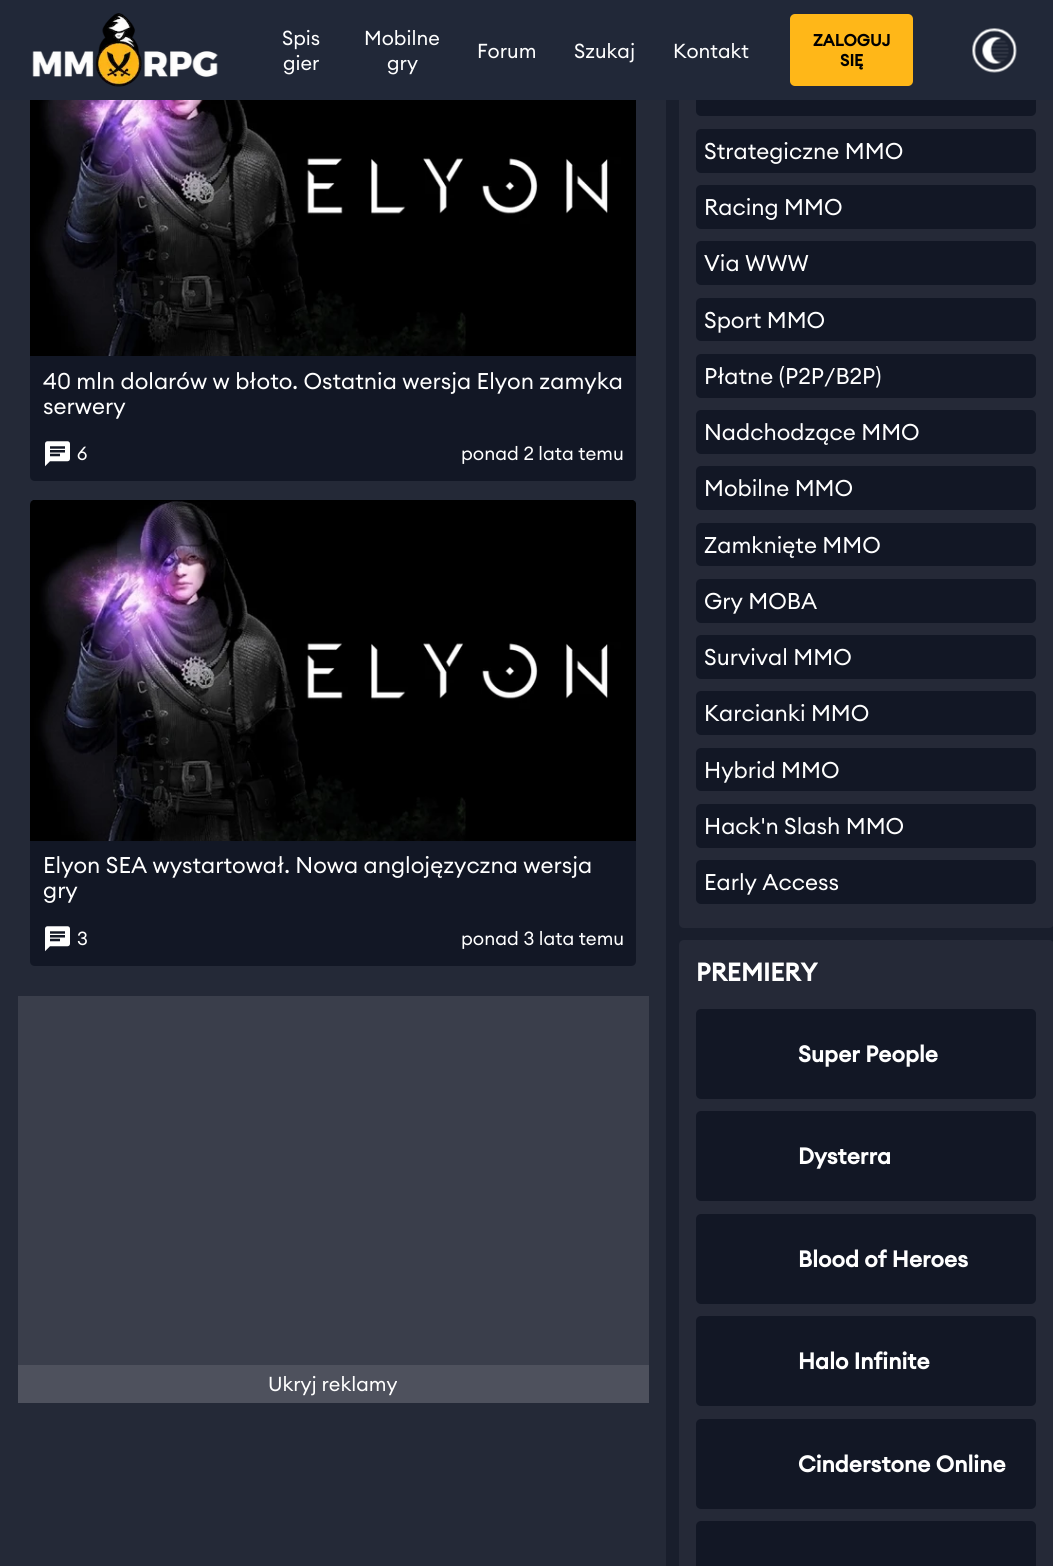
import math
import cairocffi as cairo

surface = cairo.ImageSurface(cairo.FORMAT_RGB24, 1053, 1566)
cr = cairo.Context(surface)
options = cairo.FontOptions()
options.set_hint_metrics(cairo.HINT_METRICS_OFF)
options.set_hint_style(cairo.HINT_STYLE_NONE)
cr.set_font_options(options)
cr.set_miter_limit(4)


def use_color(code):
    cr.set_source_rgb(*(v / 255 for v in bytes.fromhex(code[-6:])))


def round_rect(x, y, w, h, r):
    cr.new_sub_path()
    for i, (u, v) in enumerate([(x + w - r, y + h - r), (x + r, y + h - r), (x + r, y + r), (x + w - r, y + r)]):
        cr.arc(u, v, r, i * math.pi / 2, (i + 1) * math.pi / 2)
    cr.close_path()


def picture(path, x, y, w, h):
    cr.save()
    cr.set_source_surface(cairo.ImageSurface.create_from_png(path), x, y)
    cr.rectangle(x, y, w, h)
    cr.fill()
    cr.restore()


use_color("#191e2c")
cr.paint()
use_color("#252937")
round_rect(679, -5, 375, 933, 5)
cr.fill()
use_color("#121725")
round_rect(696, 73, 340, 43, 5)
cr.fill()
use_color("#212838")
cr.rectangle(0, 0, 1053, 100)
cr.fill()
picture("img1.png", 32, 13, 186, 74)
cr.select_font_face("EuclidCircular")
cr.set_font_size(20)
use_color("#ffffff")
cr.move_to(282, 45)
cr.show_text("Spis")
cr.move_to(283, 70)
cr.show_text("gier")
cr.move_to(364, 45)
cr.show_text("Mobilne")
cr.move_to(387, 70)
cr.show_text("gry")
cr.move_to(477, 58)
cr.show_text("Forum")
cr.move_to(574, 58)
cr.show_text("Szukaj")
cr.move_to(673, 58)
cr.show_text("Kontakt")
use_color("#ffb718")
round_rect(790, 14, 123, 72, 5)
cr.fill()
cr.select_font_face("EuclidCircular", cairo.FONT_SLANT_NORMAL, cairo.FONT_WEIGHT_BOLD)
cr.set_font_size(16.25)
use_color("#000000")
cr.move_to(813, 46)
cr.show_text("ZALOGUJ")
cr.move_to(840, 66)
cr.show_text("SIĘ")
picture("img2.png", 972, 28, 45, 45)
use_color("#242937")
cr.rectangle(0, 100, 666, 1466)
cr.fill()
picture("img3.png", 30, 100, 606, 256)
use_color("#121725")
cr.new_path()
cr.move_to(30, 356)
cr.line_to(636, 356)
cr.line_to(636, 476)
cr.curve_to(636, 479, 634, 481, 631, 481)
cr.line_to(35, 481)
cr.curve_to(32, 481, 30, 479, 30, 476)
cr.close_path()
cr.fill()
cr.select_font_face("EuclidCircular")
cr.set_font_size(22.5)
use_color("#ffffff")
cr.move_to(43, 389)
cr.show_text("40 mln dolarów w błoto. Ostatnia wersja Elyon zamyka")
cr.move_to(43, 414)
cr.show_text("serwery")
picture("img4.png", 45, 441, 25, 26)
cr.set_font_size(18.75)
cr.move_to(77, 460)
cr.show_text("6")
cr.move_to(461, 460)
cr.show_text("ponad 2 lata temu")
picture("img5.png", 30, 500, 606, 341)
use_color("#121725")
cr.new_path()
cr.move_to(30, 841)
cr.line_to(636, 841)
cr.line_to(636, 961)
cr.curve_to(636, 964, 634, 966, 631, 966)
cr.line_to(35, 966)
cr.curve_to(32, 966, 30, 964, 30, 961)
cr.close_path()
cr.fill()
cr.set_font_size(22.5)
use_color("#ffffff")
cr.move_to(43, 873)
cr.show_text("Elyon SEA wystartował. Nowa anglojęzyczna wersja")
cr.move_to(43, 898)
cr.show_text("gry")
picture("img4.png", 45, 926, 25, 26)
cr.set_font_size(18.75)
cr.move_to(77, 945)
cr.show_text("3")
cr.move_to(461, 945)
cr.show_text("ponad 3 lata temu")
use_color("#3a3e4b")
cr.rectangle(18, 996, 631, 369)
cr.fill()
use_color("#4e515d")
cr.rectangle(18, 1365, 631, 38)
cr.fill()
cr.set_font_size(20)
use_color("#ffffff")
cr.move_to(268, 1391)
cr.show_text("Ukryj reklamy")
use_color("#121725")
round_rect(696, 129, 340, 44, 5)
cr.fill()
cr.set_font_size(22.5)
use_color("#ffffff")
cr.move_to(704, 159)
cr.show_text("Strategiczne MMO")
use_color("#121725")
round_rect(696, 185, 340, 44, 5)
cr.fill()
use_color("#ffffff")
cr.move_to(704, 215)
cr.show_text("Racing MMO")
use_color("#121725")
round_rect(696, 241, 340, 44, 5)
cr.fill()
use_color("#ffffff")
cr.move_to(704, 271)
cr.show_text("Via WWW")
use_color("#121725")
round_rect(696, 298, 340, 43, 5)
cr.fill()
use_color("#ffffff")
cr.move_to(704, 328)
cr.show_text("Sport MMO")
use_color("#121725")
round_rect(696, 354, 340, 44, 5)
cr.fill()
use_color("#ffffff")
cr.move_to(704, 384)
cr.show_text("Płatne (P2P/B2P)")
use_color("#121725")
round_rect(696, 410, 340, 44, 5)
cr.fill()
use_color("#ffffff")
cr.move_to(704, 440)
cr.show_text("Nadchodzące MMO")
use_color("#121725")
round_rect(696, 466, 340, 44, 5)
cr.fill()
use_color("#ffffff")
cr.move_to(704, 496)
cr.show_text("Mobilne MMO")
use_color("#121725")
round_rect(696, 523, 340, 43, 5)
cr.fill()
use_color("#ffffff")
cr.move_to(704, 553)
cr.show_text("Zamknięte MMO")
use_color("#121725")
round_rect(696, 579, 340, 44, 5)
cr.fill()
use_color("#ffffff")
cr.move_to(704, 609)
cr.show_text("Gry MOBA")
use_color("#121725")
round_rect(696, 635, 340, 44, 5)
cr.fill()
use_color("#ffffff")
cr.move_to(704, 665)
cr.show_text("Survival MMO")
use_color("#121725")
round_rect(696, 691, 340, 44, 5)
cr.fill()
use_color("#ffffff")
cr.move_to(704, 721)
cr.show_text("Karcianki MMO")
use_color("#121725")
round_rect(696, 748, 340, 43, 5)
cr.fill()
use_color("#ffffff")
cr.move_to(704, 778)
cr.show_text("Hybrid MMO")
use_color("#121725")
round_rect(696, 804, 340, 44, 5)
cr.fill()
use_color("#ffffff")
cr.move_to(704, 834)
cr.show_text("Hack'n Slash MMO")
use_color("#121725")
round_rect(696, 860, 340, 44, 5)
cr.fill()
use_color("#ffffff")
cr.move_to(704, 890)
cr.show_text("Early Access")
use_color("#252937")
round_rect(679, 940, 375, 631, 5)
cr.fill()
cr.select_font_face("EuclidCircular", cairo.FONT_SLANT_NORMAL, cairo.FONT_WEIGHT_BOLD)
cr.set_font_size(25)
use_color("#ffffff")
cr.move_to(696, 981)
cr.show_text("PREMIERY")
use_color("#121725")
round_rect(696, 1009, 340, 90, 5)
cr.fill()
cr.set_font_size(22.5)
use_color("#ffffff")
cr.move_to(798, 1062)
cr.show_text("Super People")
use_color("#121725")
round_rect(696, 1111, 340, 90, 5)
cr.fill()
use_color("#ffffff")
cr.move_to(798, 1164)
cr.show_text("Dysterra")
use_color("#121725")
round_rect(696, 1214, 340, 90, 5)
cr.fill()
use_color("#ffffff")
cr.move_to(798, 1267)
cr.show_text("Blood of Heroes")
use_color("#121725")
round_rect(696, 1316, 340, 90, 5)
cr.fill()
use_color("#ffffff")
cr.move_to(798, 1369)
cr.show_text("Halo Infinite")
use_color("#121725")
round_rect(696, 1419, 340, 90, 5)
cr.fill()
use_color("#ffffff")
cr.move_to(798, 1472)
cr.show_text("Cinderstone Online")
use_color("#121725")
round_rect(696, 1521, 340, 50, 5)
cr.fill()
surface.write_to_png("result.png")
